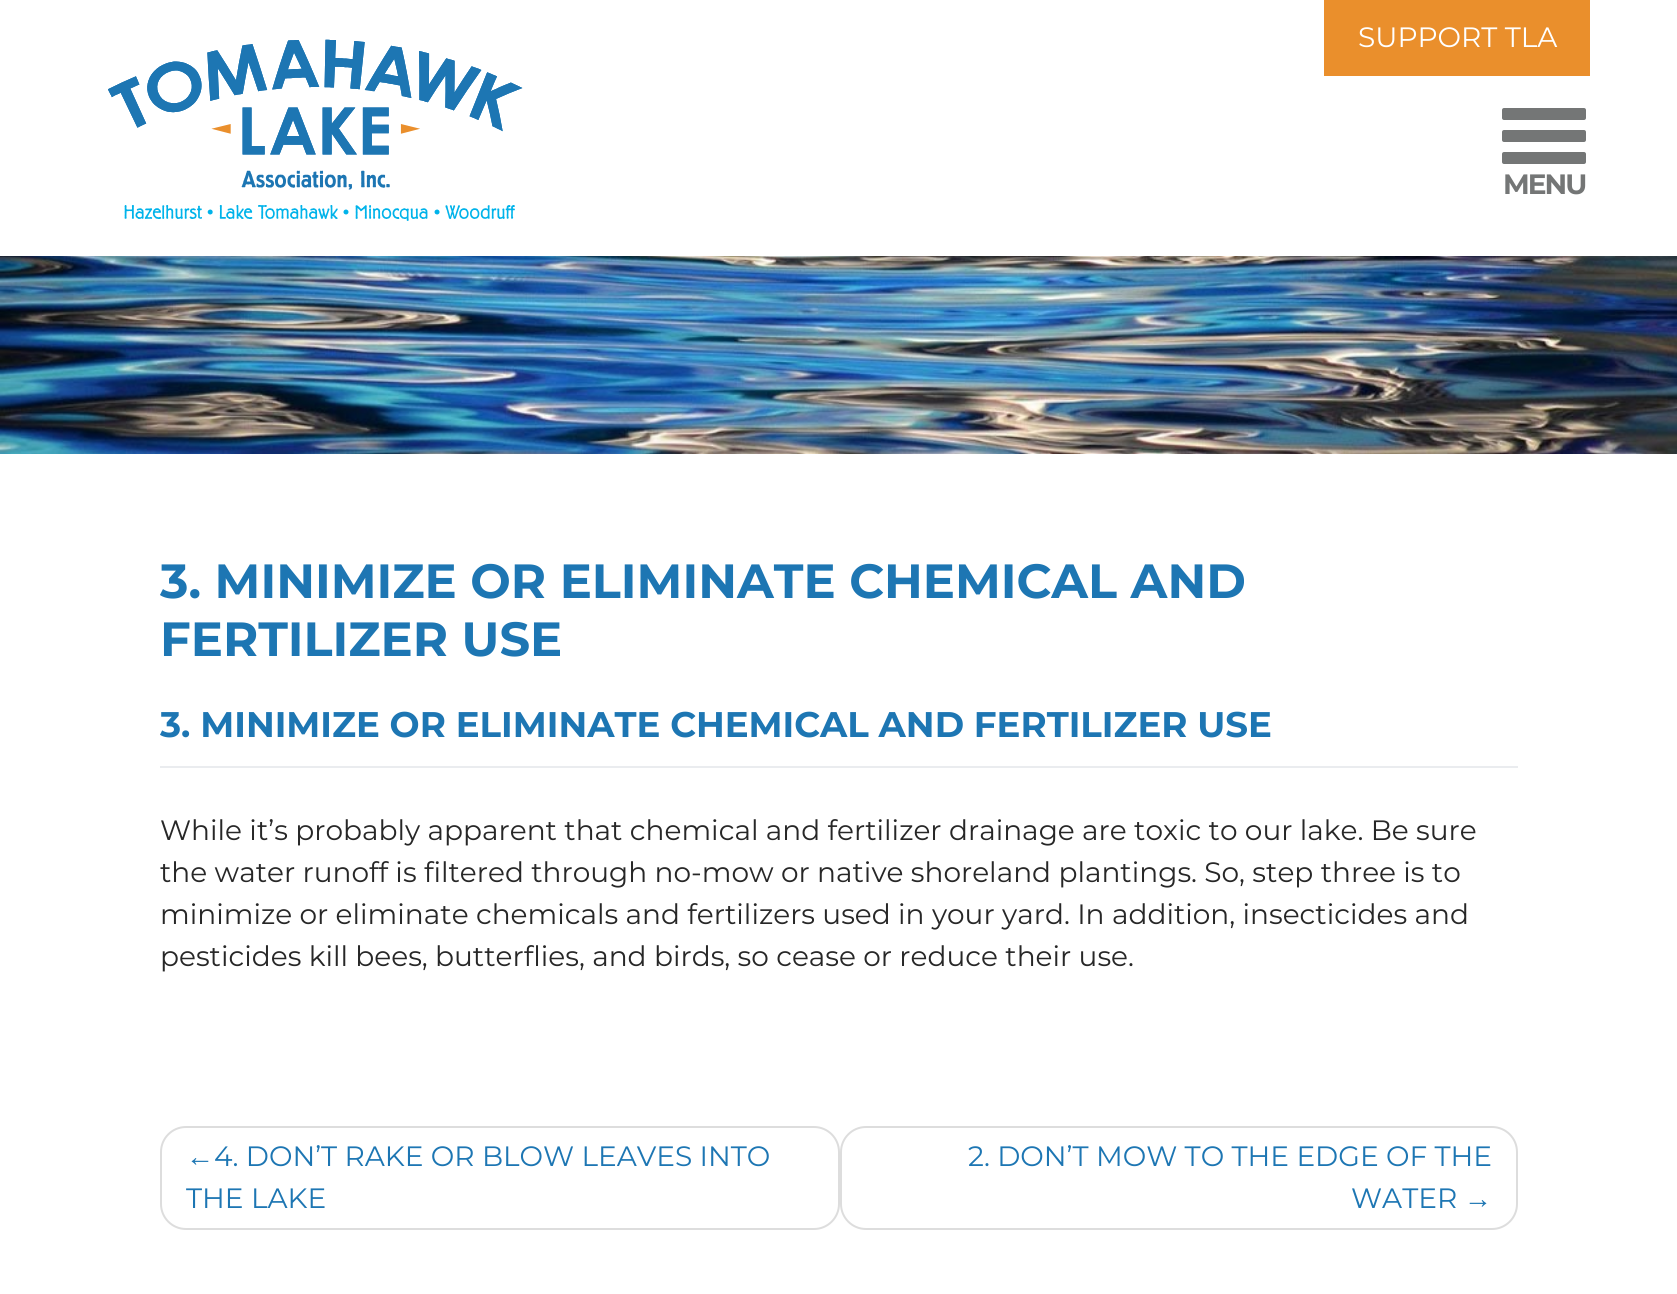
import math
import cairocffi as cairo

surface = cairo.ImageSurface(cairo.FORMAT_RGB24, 1677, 1294)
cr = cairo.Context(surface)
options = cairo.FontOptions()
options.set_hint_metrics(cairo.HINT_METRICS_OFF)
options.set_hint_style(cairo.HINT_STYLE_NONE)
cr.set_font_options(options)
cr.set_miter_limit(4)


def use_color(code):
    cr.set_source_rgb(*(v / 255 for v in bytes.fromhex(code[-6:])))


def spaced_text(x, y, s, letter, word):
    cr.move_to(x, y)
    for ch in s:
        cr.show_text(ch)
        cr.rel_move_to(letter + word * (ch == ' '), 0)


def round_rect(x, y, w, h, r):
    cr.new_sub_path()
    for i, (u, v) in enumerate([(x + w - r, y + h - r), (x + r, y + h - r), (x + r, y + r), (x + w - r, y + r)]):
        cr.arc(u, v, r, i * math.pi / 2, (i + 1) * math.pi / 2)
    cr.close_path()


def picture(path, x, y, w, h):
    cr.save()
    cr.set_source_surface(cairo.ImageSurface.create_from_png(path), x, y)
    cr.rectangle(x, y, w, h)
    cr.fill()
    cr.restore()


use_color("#ffffff")
cr.paint()
picture("img1.png", 108, 39, 415, 182)
use_color("#ea8f2c")
cr.rectangle(1324, 0, 266, 76)
cr.fill()
cr.select_font_face("Montserrat")
cr.set_font_size(28)
use_color("#ffffff")
cr.move_to(1358, 47)
cr.show_text("SUPPORT TLA")
use_color("#747676")
round_rect(1502, 108, 84, 12, 2)
cr.fill()
round_rect(1502, 130, 84, 12, 2)
cr.fill()
round_rect(1502, 152, 84, 12, 2)
cr.fill()
cr.select_font_face("Montserrat", cairo.FONT_SLANT_NORMAL, cairo.FONT_WEIGHT_BOLD)
spaced_text(1503, 194, "MENU", -2, 0)
picture("img2.png", 0, 256, 1677, 198)
cr.set_font_size(48)
use_color("#1d76b3")
cr.move_to(160, 598)
cr.show_text("3. MINIMIZE OR ELIMINATE CHEMICAL AND")
cr.move_to(160, 656)
cr.show_text("FERTILIZER USE")
use_color("#eaecef")
cr.rectangle(160, 766, 1358, 2)
cr.fill()
cr.set_font_size(35.6)
use_color("#1d76b3")
spaced_text(160, 737, "3. MINIMIZE OR ELIMINATE CHEMICAL AND FERTILIZER USE", 0, -0.25)
cr.select_font_face("Montserrat")
cr.set_font_size(28)
use_color("#272727")
cr.move_to(160, 840)
cr.show_text("While it’s probably apparent that chemical and fertilizer drainage are toxic to our lake. Be sure")
cr.move_to(160, 882)
cr.show_text("the water runoff is filtered through no-mow or native shoreland plantings. So, step three is to")
cr.move_to(160, 924)
cr.show_text("minimize or eliminate chemicals and fertilizers used in your yard. In addition, insecticides and")
cr.move_to(160, 966)
cr.show_text("pesticides kill bees, butterflies, and birds, so cease or reduce their use.")
round_rect(161, 1127, 678, 102, 25)
use_color("#dddddd")
cr.stroke()
cr.select_font_face("Liberation Sans")
use_color("#1d76b3")
cr.move_to(186, 1166)
cr.show_text("←")
cr.select_font_face("Montserrat")
cr.move_to(214, 1166)
cr.show_text("4. DON’T RAKE OR BLOW LEAVES INTO")
cr.move_to(186, 1208)
cr.show_text("THE LAKE")
round_rect(841, 1127, 676, 102, 25)
use_color("#dddddd")
cr.stroke()
use_color("#1d76b3")
cr.move_to(968, 1166)
cr.show_text("2. DON’T MOW TO THE EDGE OF THE")
cr.move_to(1351, 1208)
cr.show_text("WATER")
cr.select_font_face("Liberation Sans")
cr.move_to(1464, 1208)
cr.show_text("→")
surface.write_to_png("result.png")
